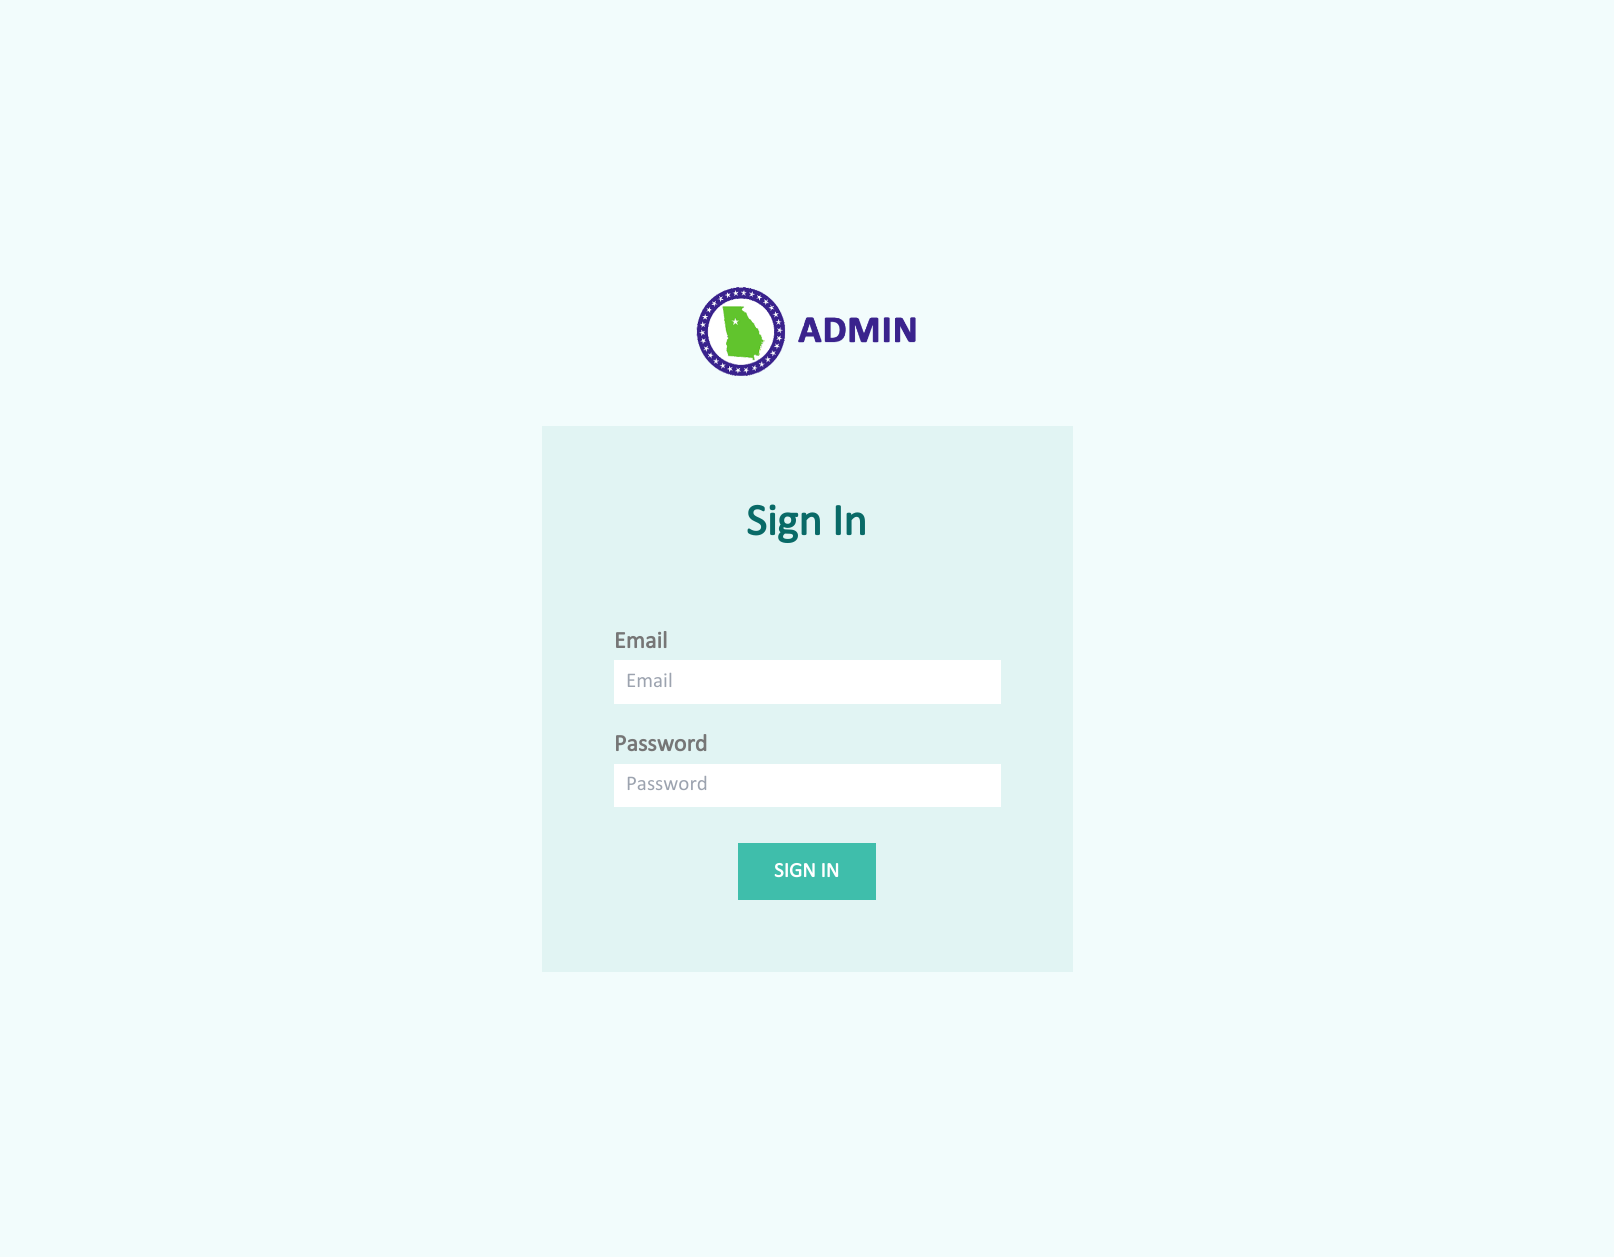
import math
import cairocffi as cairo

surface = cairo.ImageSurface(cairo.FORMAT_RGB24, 1614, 1257)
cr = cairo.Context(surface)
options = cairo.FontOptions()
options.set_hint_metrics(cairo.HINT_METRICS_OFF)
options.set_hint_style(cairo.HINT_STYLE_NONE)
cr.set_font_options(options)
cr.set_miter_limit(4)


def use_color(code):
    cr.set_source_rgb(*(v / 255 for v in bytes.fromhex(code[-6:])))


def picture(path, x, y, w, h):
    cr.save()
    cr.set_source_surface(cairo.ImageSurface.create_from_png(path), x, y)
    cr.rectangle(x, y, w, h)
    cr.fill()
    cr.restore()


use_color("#f2fcfc")
cr.paint()
picture("img1.png", 696, 287, 220, 89)
use_color("#e1f4f3")
cr.rectangle(542, 426, 531, 546)
cr.fill()
cr.select_font_face("Calibri", cairo.FONT_SLANT_NORMAL, cairo.FONT_WEIGHT_BOLD)
cr.set_font_size(45)
use_color("#096a67")
cr.move_to(746, 535)
cr.show_text("Sign In")
cr.set_font_size(24)
use_color("#767676")
cr.move_to(614, 648)
cr.show_text("Email")
use_color("#ffffff")
cr.rectangle(614, 660, 387, 44)
cr.fill()
cr.select_font_face("Calibri")
cr.set_font_size(21)
use_color("#9ca3af")
cr.move_to(626, 687)
cr.show_text("Email")
cr.select_font_face("Calibri", cairo.FONT_SLANT_NORMAL, cairo.FONT_WEIGHT_BOLD)
cr.set_font_size(24)
use_color("#767676")
cr.move_to(614, 751)
cr.show_text("Password")
use_color("#ffffff")
cr.rectangle(614, 764, 387, 43)
cr.fill()
cr.select_font_face("Calibri")
cr.set_font_size(21)
use_color("#9ca3af")
cr.move_to(626, 790)
cr.show_text("Password")
use_color("#3fbeab")
cr.rectangle(738, 843, 138, 57)
cr.fill()
cr.select_font_face("Calibri", cairo.FONT_SLANT_NORMAL, cairo.FONT_WEIGHT_BOLD)
use_color("#ffffff")
cr.move_to(774, 877)
cr.show_text("SIGN IN")
surface.write_to_png("result.png")
